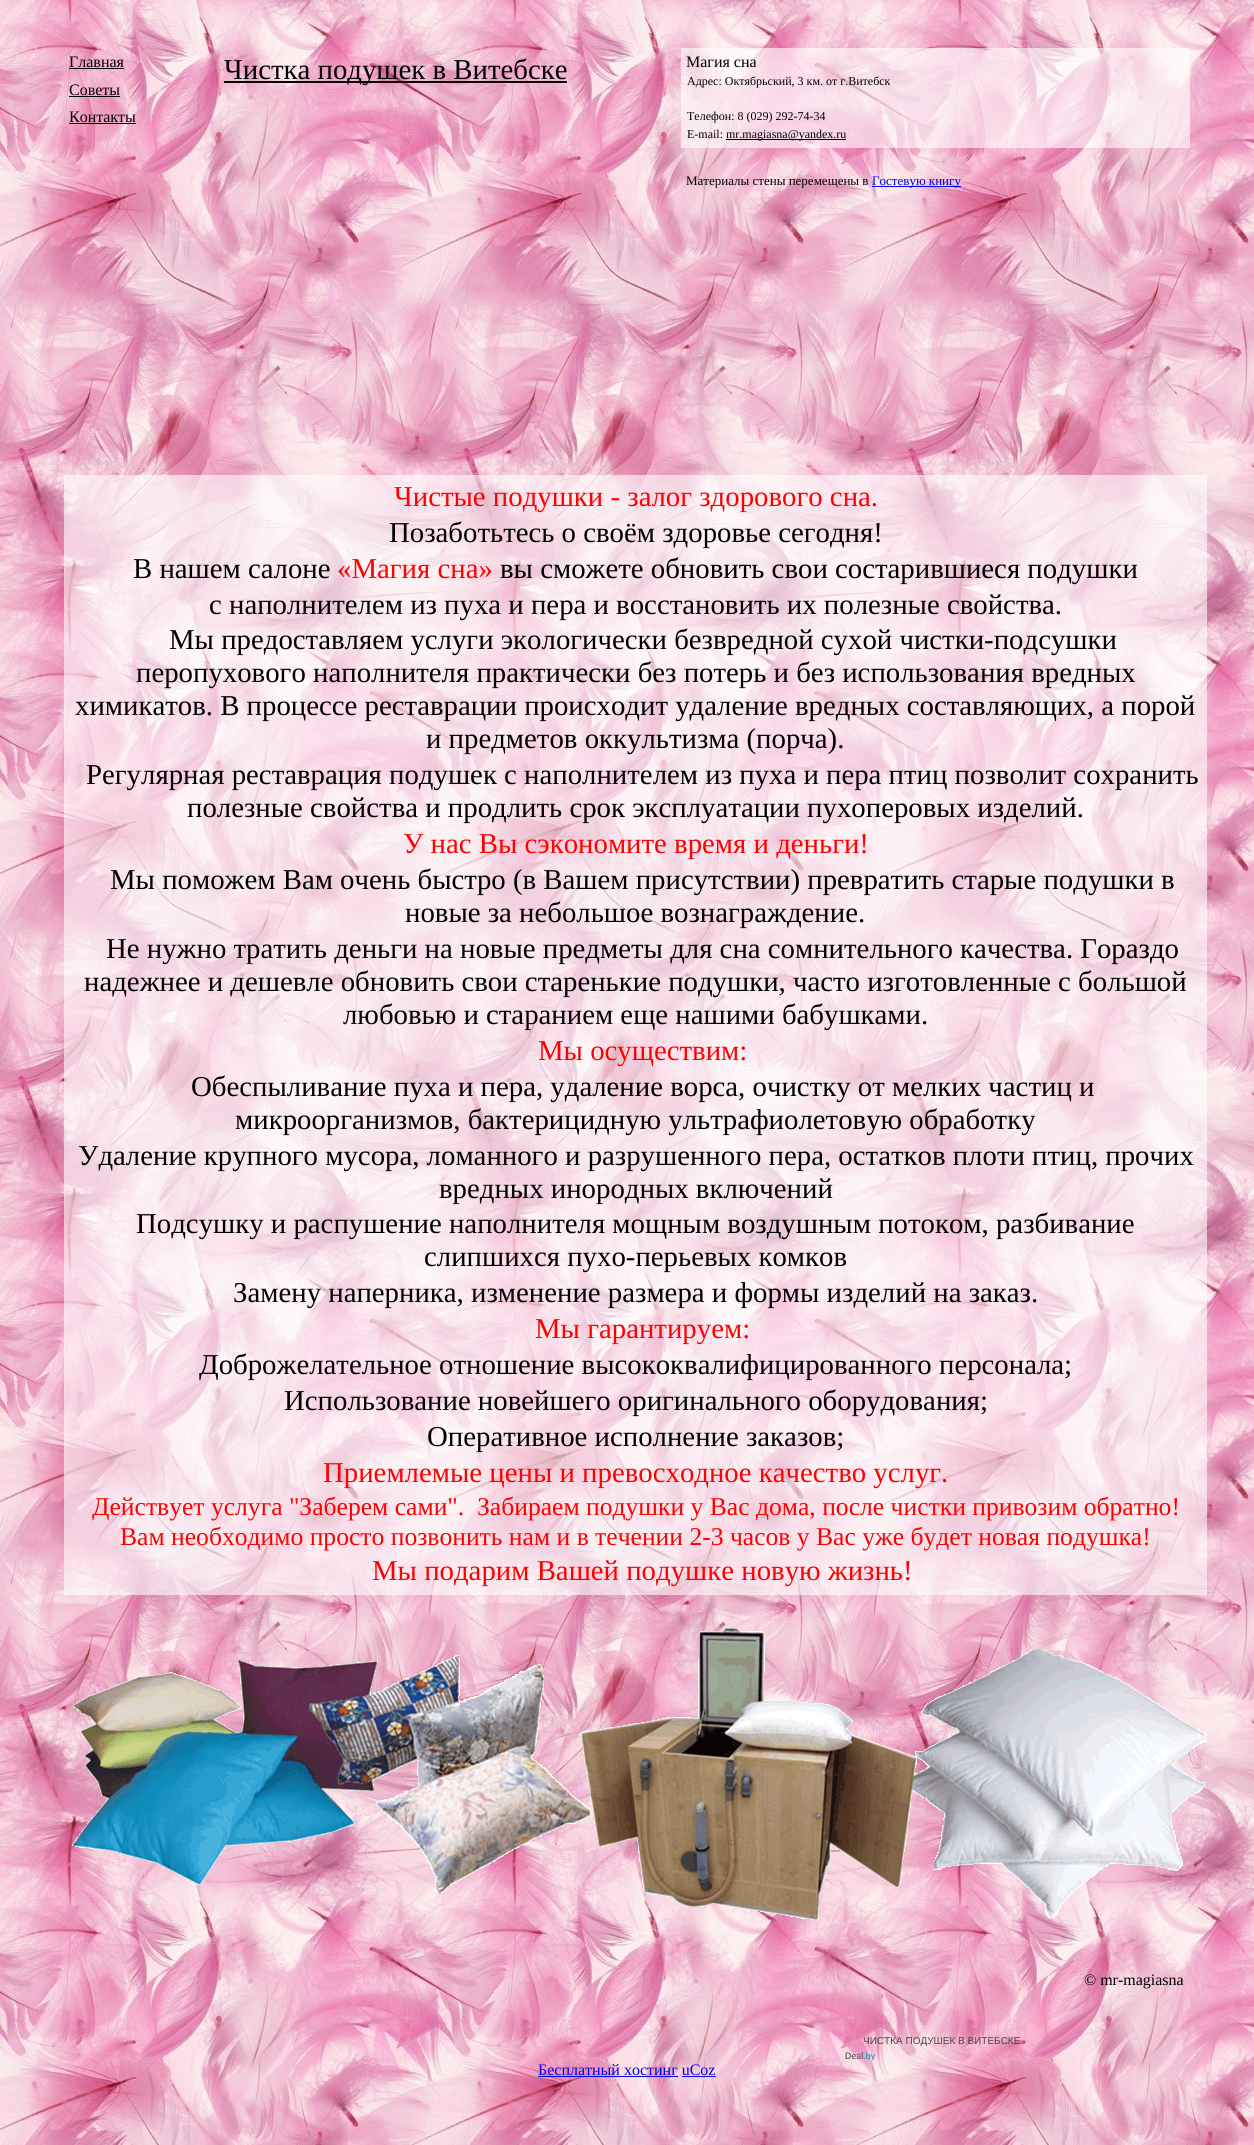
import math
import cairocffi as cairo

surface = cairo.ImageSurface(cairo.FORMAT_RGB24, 1254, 2145)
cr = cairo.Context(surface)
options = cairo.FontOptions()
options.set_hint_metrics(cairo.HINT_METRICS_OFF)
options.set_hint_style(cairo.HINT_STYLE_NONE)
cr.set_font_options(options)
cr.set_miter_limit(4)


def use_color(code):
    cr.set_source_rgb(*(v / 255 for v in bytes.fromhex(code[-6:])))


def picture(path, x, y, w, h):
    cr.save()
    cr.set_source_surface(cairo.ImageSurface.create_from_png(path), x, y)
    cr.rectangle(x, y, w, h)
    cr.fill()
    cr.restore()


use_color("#ffffff")
cr.paint()
picture("img1.png", 0, 0, 1254, 2145)
cr.select_font_face("Liberation Serif")
cr.set_font_size(16)
use_color("#000000")
cr.move_to(69, 67)
cr.show_text("Главная")
cr.rectangle(69, 68, 55, 1)
cr.fill()
cr.move_to(69, 95)
cr.show_text("Советы")
cr.rectangle(69, 96, 51, 1)
cr.fill()
cr.move_to(69, 122)
cr.show_text("Контакты")
cr.rectangle(69, 123, 67, 1)
cr.fill()
cr.rectangle(224, 81, 343, 2)
cr.fill()
cr.set_font_size(28.8)
cr.move_to(224, 79)
cr.show_text("Чистка подушек в Витебске")
cr.set_source_rgba(1, 1, 1, 0.6)
cr.rectangle(681, 48, 509, 100)
cr.fill()
cr.set_font_size(16)
use_color("#000000")
cr.move_to(686, 67)
cr.show_text("Магия сна")
cr.set_font_size(12)
cr.move_to(687, 85)
cr.show_text("Адрес: Октябрьский, 3 км. от г.Витебск")
cr.move_to(687, 120)
cr.show_text("Телефон: 8 (029) 292-74-34")
cr.move_to(687, 138)
cr.show_text("E-mail:")
cr.rectangle(726, 139, 120, 1)
cr.fill()
cr.move_to(726, 138)
cr.show_text("mr.magiasna@yandex.ru")
cr.set_font_size(13)
cr.move_to(686, 185)
cr.show_text("Материалы стены перемещены в")
use_color("#0000ee")
cr.rectangle(872, 186, 89, 1)
cr.fill()
cr.move_to(872, 185)
cr.show_text("Гостевую книгу")
cr.set_source_rgba(1, 1, 1, 0.6)
cr.rectangle(64, 475, 1143, 1120)
cr.fill()
cr.set_font_size(28.8)
use_color("#ff0000")
cr.move_to(394, 506)
cr.show_text("Чистые подушки - залог здорового сна.")
use_color("#000000")
cr.move_to(389, 542)
cr.show_text("Позаботьтесь о своём здоровье сегодня!")
cr.move_to(133, 578)
cr.show_text("В нашем салоне")
use_color("#ff0000")
cr.move_to(337, 578)
cr.show_text("«Магия сна»")
use_color("#000000")
cr.move_to(500, 578)
cr.show_text("вы сможете обновить свои состарившиеся подушки")
cr.move_to(209, 614)
cr.show_text("с наполнителем из пуха и пера и восстановить их полезные свойства.")
cr.move_to(169, 649)
cr.show_text("Мы предоставляем услуги экологически безвредной сухой чистки-подсушки")
cr.move_to(136, 682)
cr.show_text("перопухового наполнителя практически без потерь и без использования вредных")
cr.move_to(75, 715)
cr.show_text("химикатов. В процессе реставрации происходит удаление вредных составляющих, а порой")
cr.move_to(426, 748)
cr.show_text("и предметов оккультизма (порча).")
cr.move_to(86, 784)
cr.show_text("Регулярная реставрация подушек с наполнителем из пуха и пера птиц позволит сохранить")
cr.move_to(187, 817)
cr.show_text("полезные свойства и продлить срок эксплуатации пухоперовых изделий.")
use_color("#ff0000")
cr.move_to(403, 853)
cr.show_text("У нас Вы сэкономите время и деньги!")
use_color("#000000")
cr.move_to(110, 889)
cr.show_text("Мы поможем Вам очень быстро (в Вашем присутствии) превратить старые подушки в")
cr.move_to(405, 922)
cr.show_text("новые за небольшое вознаграждение.")
cr.move_to(106, 958)
cr.show_text("Не нужно тратить деньги на новые предметы для сна сомнительного качества. Гораздо")
cr.move_to(84, 991)
cr.show_text("надежнее и дешевле обновить свои старенькие подушки, часто изготовленные с большой")
cr.move_to(343, 1024)
cr.show_text("любовью и старанием еще нашими бабушками.")
use_color("#ff0000")
cr.move_to(538, 1060)
cr.show_text("Мы осуществим:")
use_color("#000000")
cr.move_to(191, 1096)
cr.show_text("Обеспыливание пуха и пера, удаление ворса, очистку от мелких частиц и")
cr.move_to(235, 1129)
cr.show_text("микроорганизмов, бактерицидную ультрафиолетовую обработку")
cr.move_to(78, 1165)
cr.show_text("Удаление крупного мусора, ломанного и разрушенного пера, остатков плоти птиц, прочих")
cr.move_to(439, 1198)
cr.show_text("вредных инородных включений")
cr.move_to(136, 1233)
cr.show_text("Подсушку и распушение наполнителя мощным воздушным потоком, разбивание")
cr.move_to(424, 1266)
cr.show_text("слипшихся пухо-перьевых комков")
cr.move_to(233, 1302)
cr.show_text("Замену наперника, изменение размера и формы изделий на заказ.")
use_color("#ff0000")
cr.move_to(535, 1338)
cr.show_text("Мы гарантируем:")
use_color("#000000")
cr.move_to(199, 1374)
cr.show_text("Доброжелательное отношение высококвалифицированного персонала;")
cr.move_to(284, 1410)
cr.show_text("Использование новейшего оригинального оборудования;")
cr.move_to(427, 1446)
cr.show_text("Оперативное исполнение заказов;")
use_color("#ff0000")
cr.move_to(323, 1482)
cr.show_text("Приемлемые цены и превосходное качество услуг.")
cr.set_font_size(25.6)
cr.move_to(92, 1515)
cr.show_text("Действует услуга \"Заберем сами\".  Забираем подушки у Вас дома, после чистки привозим обратно!")
cr.move_to(120, 1545)
cr.show_text("Вам необходимо просто позвонить нам и в течении 2-3 часов у Вас уже будет новая подушка!")
cr.set_font_size(28.8)
cr.move_to(372, 1580)
cr.show_text("Мы подарим Вашей подушке новую жизнь!")
picture("img2.png", 72, 1628, 1135, 293)
cr.set_font_size(16)
use_color("#000000")
cr.move_to(1084, 1985)
cr.show_text("© mr-magiasna")
cr.select_font_face("Liberation Sans")
cr.set_font_size(10)
use_color("#464646")
cr.move_to(863, 2044)
cr.show_text("ЧИСТКА ПОДУШЕК В ВИТЕБСКЕ")
cr.select_font_face("Carlito")
cr.move_to(845, 2059)
cr.show_text("Deal")
use_color("#1e8aab")
cr.move_to(863, 2059)
cr.show_text(".by")
cr.select_font_face("Liberation Serif")
cr.set_font_size(16)
use_color("#0000ee")
cr.move_to(538, 2075)
cr.show_text("Бесплатный хостинг uCoz")
cr.rectangle(538, 2076, 140, 1)
cr.fill()
cr.rectangle(682, 2076, 34, 1)
cr.fill()
surface.write_to_png("result.png")
